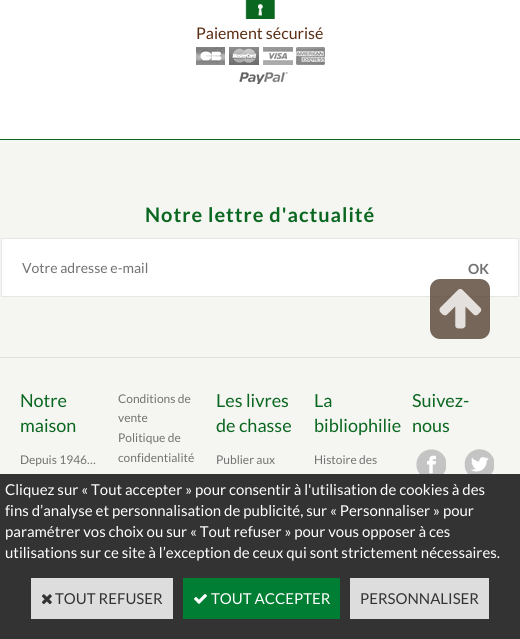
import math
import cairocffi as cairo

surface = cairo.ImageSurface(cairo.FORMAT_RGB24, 520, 639)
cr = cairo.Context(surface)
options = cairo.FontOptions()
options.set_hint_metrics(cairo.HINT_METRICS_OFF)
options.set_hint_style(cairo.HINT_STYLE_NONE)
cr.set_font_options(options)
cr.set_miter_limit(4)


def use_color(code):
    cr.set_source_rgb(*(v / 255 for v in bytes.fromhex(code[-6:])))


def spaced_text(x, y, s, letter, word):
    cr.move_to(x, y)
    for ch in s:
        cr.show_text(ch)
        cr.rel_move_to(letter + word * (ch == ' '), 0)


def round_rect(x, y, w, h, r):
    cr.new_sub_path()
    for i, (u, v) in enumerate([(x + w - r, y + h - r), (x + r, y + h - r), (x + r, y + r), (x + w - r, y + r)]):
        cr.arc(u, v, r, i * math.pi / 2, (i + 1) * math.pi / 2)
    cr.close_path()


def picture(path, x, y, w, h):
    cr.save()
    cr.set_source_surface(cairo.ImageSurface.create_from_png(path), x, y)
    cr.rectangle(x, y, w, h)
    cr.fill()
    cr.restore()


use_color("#f5f5f1")
cr.paint()
use_color("#ffffff")
cr.rectangle(0, 0, 520, 139)
cr.fill()
picture("img1.png", 245, 0, 30, 19)
cr.select_font_face("Lato")
cr.set_font_size(16)
use_color("#592d12")
cr.move_to(196, 39)
cr.show_text("Paiement sécurisé")
picture("img2.png", 196, 47, 129, 37)
use_color("#0a6720")
cr.rectangle(0, 139, 520, 1)
cr.fill()
cr.select_font_face("Lato", cairo.FONT_SLANT_NORMAL, cairo.FONT_WEIGHT_BOLD)
cr.set_font_size(20)
spaced_text(145, 222, "Notre lettre d'actualité", 1, 0)
use_color("#ffffff")
cr.rectangle(2, 239, 516, 57)
cr.fill()
use_color("#e6e6e6")
cr.rectangle(1, 238, 518, 1)
cr.fill()
cr.rectangle(1, 296, 440, 1)
cr.fill()
cr.rectangle(1, 238, 1, 59)
cr.fill()
cr.select_font_face("Lato")
cr.set_font_size(14)
use_color("#727272")
cr.move_to(22, 273)
cr.show_text("Votre adresse e-mail")
use_color("#e6e6e6")
cr.rectangle(518, 238, 1, 59)
cr.fill()
cr.rectangle(439, 296, 80, 1)
cr.fill()
cr.select_font_face("Lato", cairo.FONT_SLANT_NORMAL, cairo.FONT_WEIGHT_BOLD)
use_color("#727272")
cr.move_to(468, 274)
cr.show_text("OK")
use_color("#e5e1da")
cr.rectangle(0, 357, 520, 1)
cr.fill()
cr.select_font_face("Lato")
cr.set_font_size(18)
use_color("#0a6720")
cr.move_to(20, 407)
cr.show_text("Notre")
cr.move_to(20, 432)
cr.show_text("maison")
cr.set_font_size(12)
use_color("#727272")
cr.move_to(20, 464)
cr.show_text("Depuis 1946…")
cr.move_to(118, 403)
cr.show_text("Conditions de")
cr.move_to(118, 422)
cr.show_text("vente")
cr.move_to(118, 442)
cr.show_text("Politique de")
cr.move_to(118, 462)
cr.show_text("confidentialité")
cr.set_font_size(18)
use_color("#0a6720")
cr.move_to(216, 407)
cr.show_text("Les livres")
cr.move_to(216, 432)
cr.show_text("de chasse")
cr.set_font_size(12)
use_color("#727272")
cr.move_to(216, 464)
cr.show_text("Publier aux")
cr.set_font_size(18)
use_color("#0a6720")
cr.move_to(314, 407)
cr.show_text("La")
cr.move_to(314, 432)
cr.show_text("bibliophilie")
cr.set_font_size(12)
use_color("#727272")
cr.move_to(314, 464)
cr.show_text("Histoire des")
cr.set_font_size(18)
use_color("#0a6720")
cr.move_to(412, 407)
cr.show_text("Suivez-")
cr.move_to(412, 432)
cr.show_text("nous")
picture("img3.png", 416, 449, 30, 25)
picture("img4.png", 464, 449, 30, 25)
cr.set_source_rgba(0.337, 0.263, 0.204, 0.8)
round_rect(430, 279, 60, 60, 10)
cr.fill()
picture("img5.png", 439, 289, 43, 40)
use_color("#333333")
cr.rectangle(0, 474, 520, 165)
cr.fill()
cr.set_font_size(15)
use_color("#ffffff")
cr.move_to(5, 495)
cr.show_text("Cliquez sur « Tout accepter » pour consentir à l'utilisation de cookies à des")
cr.move_to(5, 516)
cr.show_text("fins d’analyse et personnalisation de publicité, sur « Personnaliser » pour")
cr.move_to(5, 537)
cr.show_text("paramétrer vos choix ou sur « Tout refuser » pour vous opposer à ces")
cr.move_to(5, 558)
cr.show_text("utilisations sur ce site à l’exception de ceux qui sont strictement nécessaires.")
use_color("#dddddd")
cr.rectangle(31, 578, 142, 41)
cr.fill()
picture("img6.png", 42, 594, 10, 11)
use_color("#333333")
cr.move_to(55, 604)
cr.show_text("TOUT REFUSER")
use_color("#007e33")
cr.rectangle(183, 578, 157, 41)
cr.fill()
picture("img7.png", 194, 594, 13, 10)
use_color("#ffffff")
cr.move_to(211, 604)
cr.show_text("TOUT ACCEPTER")
use_color("#dddddd")
cr.rectangle(350, 578, 139, 41)
cr.fill()
use_color("#333333")
cr.move_to(360, 604)
cr.show_text("PERSONNALISER")
surface.write_to_png("result.png")
